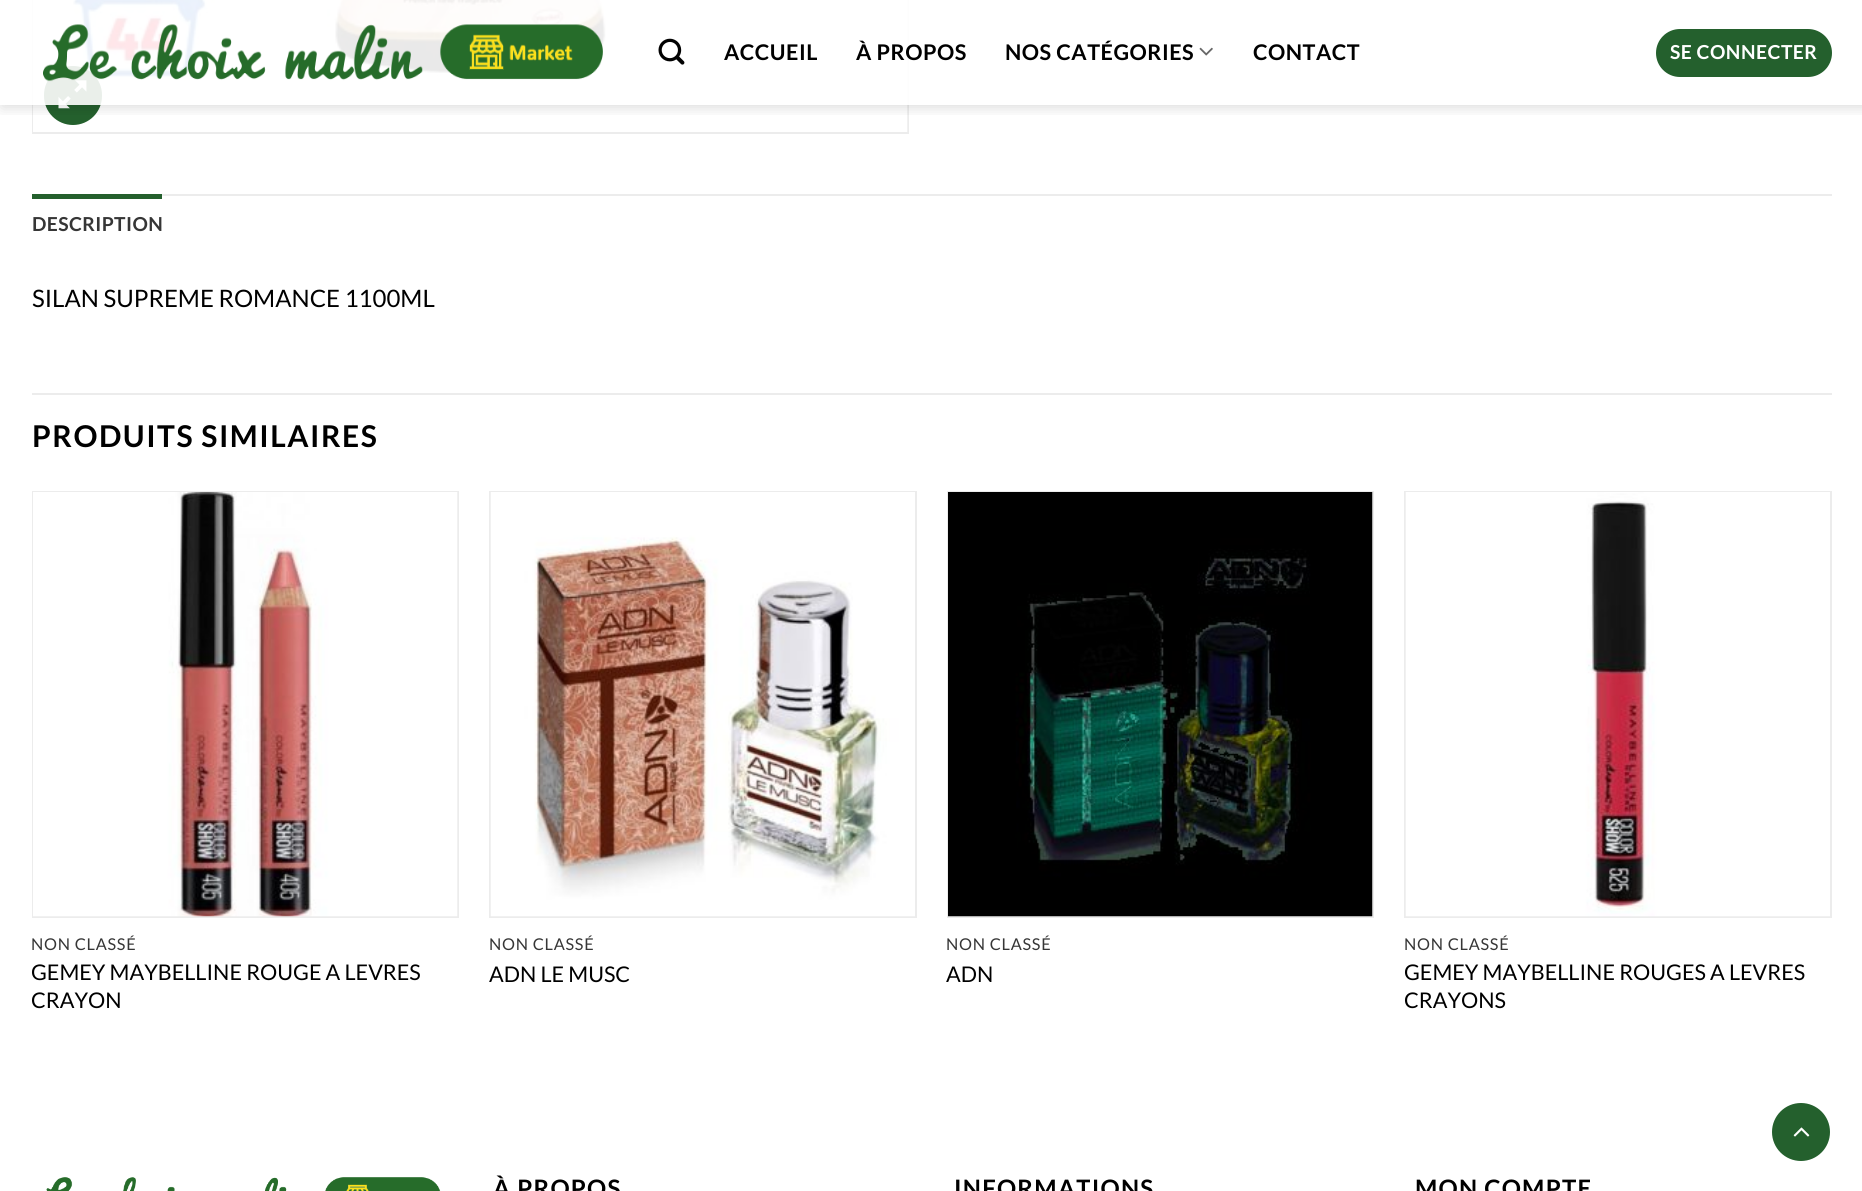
import math
import cairocffi as cairo

surface = cairo.ImageSurface(cairo.FORMAT_RGB24, 1862, 1191)
cr = cairo.Context(surface)
options = cairo.FontOptions()
options.set_hint_metrics(cairo.HINT_METRICS_OFF)
options.set_hint_style(cairo.HINT_STYLE_NONE)
cr.set_font_options(options)
cr.set_miter_limit(4)


def use_color(code):
    cr.set_source_rgb(*(v / 255 for v in bytes.fromhex(code[-6:])))


def spaced_text(x, y, s, letter, word):
    cr.move_to(x, y)
    for ch in s:
        cr.show_text(ch)
        cr.rel_move_to(letter + word * (ch == ' '), 0)


def round_rect(x, y, w, h, r):
    cr.new_sub_path()
    for i, (u, v) in enumerate([(x + w - r, y + h - r), (x + r, y + h - r), (x + r, y + r), (x + w - r, y + r)]):
        cr.arc(u, v, r, i * math.pi / 2, (i + 1) * math.pi / 2)
    cr.close_path()


def shadow(x, y, w, h, r, blur, alpha):
    cr.push_group_with_content(cairo.CONTENT_ALPHA)
    cr.set_operator(cairo.OPERATOR_SOURCE)
    for i in range(15, -16, -2):
        e = blur * i / 6
        if min(w, h) + 2 * e > 0:
            cr.set_source_rgba(0, 0, 0, alpha * math.erfc((i - 1) / 8.5) / 2)
            round_rect(x - e, y - e, w + 2 * e, h + 2 * e, max(0, min(r + e + blur * .6, min(w, h) / 2 + e)))
            cr.fill()
    cr.mask(cr.pop_group())


def picture(path, x, y, w, h):
    cr.save()
    cr.set_source_surface(cairo.ImageSurface.create_from_png(path), x, y)
    cr.rectangle(x, y, w, h)
    cr.fill()
    cr.restore()


use_color("#ffffff")
cr.paint()
cr.rectangle(33, -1, 875, 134)
use_color("#ececec")
cr.stroke()
picture("img4.png", 33, 0, 875, 132)
use_color("#24602d")
round_rect(45.5, 67.5, 55, 56, 27.5)
cr.fill_preserve()
cr.set_line_width(3)
cr.stroke()
picture("img5.png", 58, 80, 29, 29)
cr.save()
cr.rectangle(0, 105, 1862, 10)
cr.clip()
use_color("#000000")
shadow(2, 2, 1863, 105, 0, 7.5, 0.15)
cr.restore()
cr.set_source_rgba(1, 1, 1, 0.9)
cr.rectangle(32, 0, 877, 105)
cr.fill()
picture("img1.png", 43, 24, 560, 58)
picture("img2.png", 658, 38, 27, 27)
cr.select_font_face("Lato", cairo.FONT_SLANT_NORMAL, cairo.FONT_WEIGHT_BOLD)
cr.set_font_size(21.6)
use_color("#000000")
spaced_text(724, 60, "ACCUEIL", 0.5, 0)
spaced_text(856, 60, "À PROPOS", 0.5, 0)
spaced_text(1005, 60, "NOS CATÉGORIES", 0.5, 0)
picture("img3.png", 1199, 47, 14, 9)
spaced_text(1253, 60, "CONTACT", 0.5, 0)
use_color("#24602d")
round_rect(1657, 30, 174, 46, 23)
cr.fill_preserve()
cr.set_line_width(2)
cr.stroke()
cr.set_font_size(19.25)
use_color("#ffffff")
spaced_text(1670, 59, "SE CONNECTER", 0.5, 0)
use_color("#ececec")
cr.rectangle(162, 194, 1670, 2)
cr.fill()
use_color("#24602d")
cr.rectangle(32, 194, 130, 5)
cr.fill()
use_color("#363636")
spaced_text(32, 231, "DESCRIPTION", 0.4, 0)
cr.select_font_face("Lato")
cr.set_font_size(24)
use_color("#000000")
cr.move_to(32, 307)
cr.show_text("SILAN SUPREME ROMANCE 1100ML")
use_color("#ececec")
cr.rectangle(32, 393, 1800, 2)
cr.fill()
cr.select_font_face("Lato", cairo.FONT_SLANT_NORMAL, cairo.FONT_WEIGHT_BOLD)
cr.set_font_size(30)
use_color("#000000")
spaced_text(32, 447, "PRODUITS SIMILAIRES", 1.5, 0)
cr.rectangle(33, 492, 425, 425)
use_color("#ececec")
cr.stroke()
picture("img6.png", 33, 492, 425, 425)
cr.select_font_face("Lato")
cr.set_font_size(16.25)
use_color("#363636")
spaced_text(31, 950, "NON CLASSÉ", 0.75, 0)
cr.set_font_size(21.6)
use_color("#000000")
cr.move_to(31, 980)
cr.show_text("GEMEY MAYBELLINE ROUGE A LEVRES")
cr.move_to(31, 1008)
cr.show_text("CRAYON")
cr.rectangle(490, 492, 426, 425)
use_color("#ececec")
cr.stroke()
picture("img7.png", 490, 492, 425, 425)
cr.set_font_size(16.25)
use_color("#363636")
spaced_text(489, 950, "NON CLASSÉ", 0.75, 0)
cr.set_font_size(21.6)
use_color("#000000")
cr.move_to(489, 982)
cr.show_text("ADN LE MUSC")
cr.rectangle(948, 492, 425, 425)
use_color("#ececec")
cr.stroke()
picture("img8.png", 948, 492, 425, 425)
cr.set_font_size(16.25)
use_color("#363636")
spaced_text(946, 950, "NON CLASSÉ", 0.75, 0)
cr.set_font_size(21.6)
use_color("#000000")
cr.move_to(946, 982)
cr.show_text("ADN")
cr.rectangle(1405, 492, 426, 425)
use_color("#ececec")
cr.stroke()
picture("img9.png", 1405, 492, 425, 425)
cr.set_font_size(16.25)
use_color("#363636")
spaced_text(1404, 950, "NON CLASSÉ", 0.75, 0)
cr.set_font_size(21.6)
use_color("#000000")
cr.move_to(1404, 980)
cr.show_text("GEMEY MAYBELLINE ROUGES A LEVRES")
cr.move_to(1404, 1008)
cr.show_text("CRAYONS")
use_color("#24602d")
cr.new_path()
cr.arc(1801, 1132, 27.5, 0, 2 * math.pi)
cr.fill_preserve()
cr.set_line_width(3)
cr.stroke()
picture("img10.png", 1793, 1127, 17, 10)
picture("img11.png", 46, 1177, 395, 14)
cr.select_font_face("Lato", cairo.FONT_SLANT_NORMAL, cairo.FONT_WEIGHT_BOLD)
cr.set_font_size(24)
use_color("#000000")
spaced_text(493, 1197, "À PROPOS", 1.25, 0)
spaced_text(954, 1197, "INFORMATIONS", 1.25, 0)
spaced_text(1415, 1197, "MON COMPTE", 1.25, 0)
surface.write_to_png("result.png")
